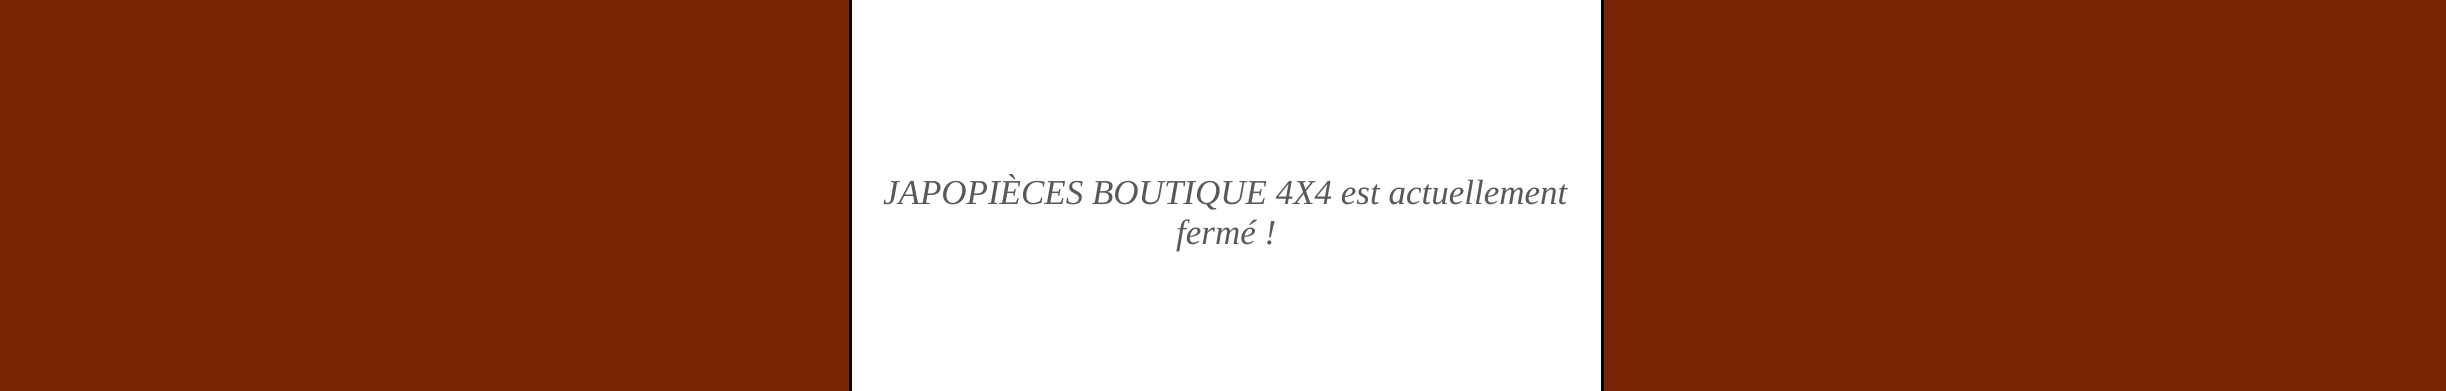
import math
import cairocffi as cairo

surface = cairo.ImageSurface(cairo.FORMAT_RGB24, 2446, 391)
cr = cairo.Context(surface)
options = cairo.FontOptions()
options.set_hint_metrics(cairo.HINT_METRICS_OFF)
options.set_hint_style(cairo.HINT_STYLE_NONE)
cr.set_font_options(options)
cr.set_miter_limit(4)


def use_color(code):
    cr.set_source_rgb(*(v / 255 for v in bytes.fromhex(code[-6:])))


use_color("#782505")
cr.paint()
use_color("#ffffff")
cr.rectangle(850.5, -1.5, 752, 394)
cr.fill_preserve()
use_color("#000000")
cr.set_line_width(3)
cr.stroke()
cr.select_font_face("Liberation Serif", cairo.FONT_SLANT_ITALIC)
cr.set_font_size(35)
use_color("#595959")
cr.move_to(883, 204)
cr.show_text("JAPOPIÈCES BOUTIQUE 4X4 est actuellement")
cr.move_to(1176, 244)
cr.show_text("fermé !")
surface.write_to_png("result.png")
